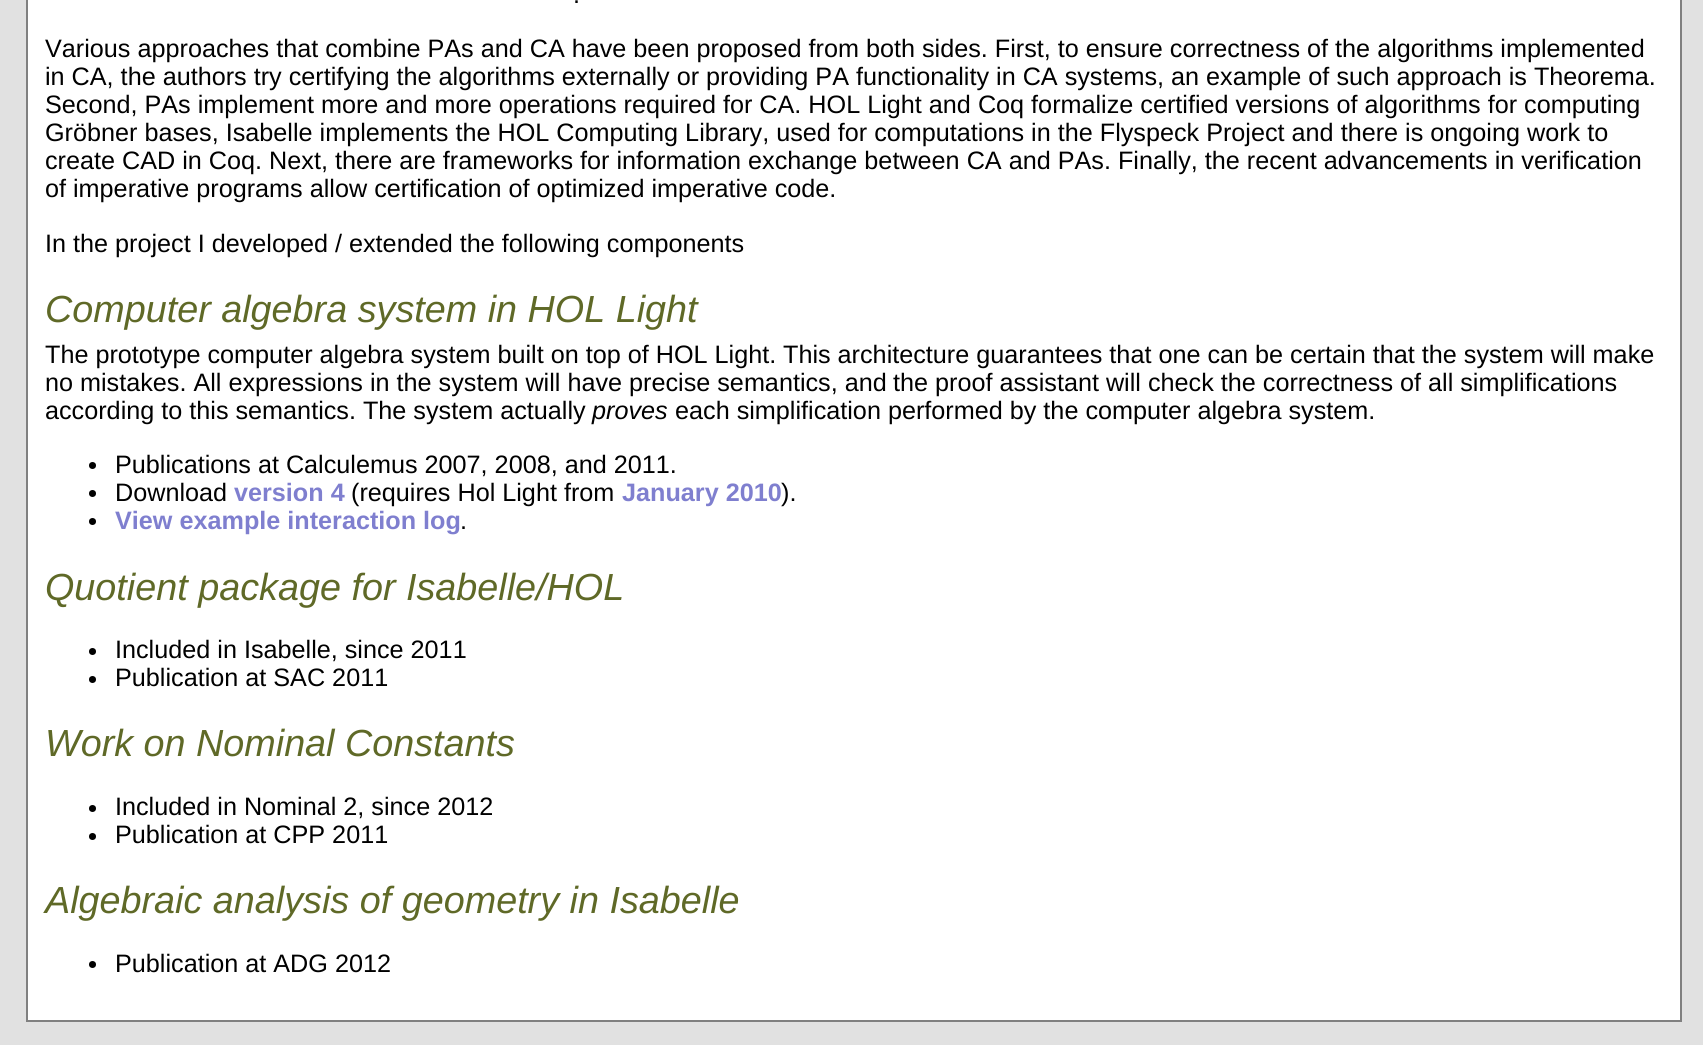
import math
import cairocffi as cairo

surface = cairo.ImageSurface(cairo.FORMAT_RGB24, 1703, 1045)
cr = cairo.Context(surface)
options = cairo.FontOptions()
options.set_hint_metrics(cairo.HINT_METRICS_OFF)
options.set_hint_style(cairo.HINT_STYLE_NONE)
cr.set_font_options(options)
cr.set_miter_limit(4)


def use_color(code):
    cr.set_source_rgb(*(v / 255 for v in bytes.fromhex(code[-6:])))


use_color("#e1e1e1")
cr.paint()
use_color("#ffffff")
cr.rectangle(28, 0, 1652, 1020)
cr.fill()
use_color("#808080")
cr.rectangle(1680, 0, 2, 1022)
cr.fill()
cr.rectangle(26, 1020, 1656, 2)
cr.fill()
cr.rectangle(26, 0, 2, 1022)
cr.fill()
cr.select_font_face("Liberation Sans")
cr.set_font_size(25.2)
use_color("#000000")
cr.move_to(573, 3)
cr.show_text(".")
cr.move_to(45, 57)
cr.show_text("Various approaches that combine PAs and CA have been proposed from both sides. First, to ensure correctness of the algorithms implemented")
cr.move_to(45, 85)
cr.show_text("in CA, the authors try certifying the algorithms externally or providing PA functionality in CA systems, an example of such approach is Theorema.")
cr.move_to(45, 113)
cr.show_text("Second, PAs implement more and more operations required for CA. HOL Light and Coq formalize certified versions of algorithms for computing")
cr.move_to(45, 141)
cr.show_text("Gröbner bases, Isabelle implements the HOL Computing Library, used for computations in the Flyspeck Project and there is ongoing work to")
cr.move_to(45, 169)
cr.show_text("create CAD in Coq. Next, there are frameworks for information exchange between CA and PAs. Finally, the recent advancements in verification")
cr.move_to(45, 197)
cr.show_text("of imperative programs allow certification of optimized imperative code.")
cr.move_to(45, 252)
cr.show_text("In the project I developed / extended the following components")
cr.select_font_face("Liberation Sans", cairo.FONT_SLANT_ITALIC)
cr.set_font_size(37.75)
use_color("#5f6927")
cr.move_to(45, 322)
cr.show_text("Computer algebra system in HOL Light")
cr.select_font_face("Liberation Sans")
cr.set_font_size(25.2)
use_color("#000000")
cr.move_to(45, 363)
cr.show_text("The prototype computer algebra system built on top of HOL Light.")
cr.move_to(783, 363)
cr.show_text("This architecture guarantees that one can be certain that the system will make")
cr.move_to(45, 391)
cr.show_text("no mistakes. All expressions in the system will have precise semantics, and")
cr.move_to(893, 391)
cr.show_text("the proof assistant will check the correctness of all simplifications")
cr.move_to(45, 419)
cr.show_text("according to this semantics. The system actually")
cr.select_font_face("Liberation Sans", cairo.FONT_SLANT_ITALIC)
cr.move_to(592, 419)
cr.show_text("proves")
cr.select_font_face("Liberation Sans")
cr.move_to(675, 419)
cr.show_text("each simplification performed by the computer algebra system.")
cr.new_path()
cr.arc(92.5, 465.5, 3.5, 0, 2 * math.pi)
cr.fill()
cr.move_to(115, 473)
cr.show_text("Publications at Calculemus 2007, 2008, and 2011.")
cr.new_path()
cr.arc(92.5, 493.5, 3.5, 0, 2 * math.pi)
cr.fill()
cr.move_to(115, 501)
cr.show_text("Download")
cr.select_font_face("Liberation Sans", cairo.FONT_SLANT_NORMAL, cairo.FONT_WEIGHT_BOLD)
use_color("#7f7fcf")
cr.move_to(234, 501)
cr.show_text("version 4")
cr.select_font_face("Liberation Sans")
use_color("#000000")
cr.move_to(351, 501)
cr.show_text("(requires Hol Light from")
cr.select_font_face("Liberation Sans", cairo.FONT_SLANT_NORMAL, cairo.FONT_WEIGHT_BOLD)
use_color("#7f7fcf")
cr.move_to(622, 501)
cr.show_text("January 2010")
cr.select_font_face("Liberation Sans")
use_color("#000000")
cr.move_to(781, 501)
cr.show_text(").")
cr.new_path()
cr.arc(92.5, 521.5, 3.5, 0, 2 * math.pi)
cr.fill()
cr.select_font_face("Liberation Sans", cairo.FONT_SLANT_NORMAL, cairo.FONT_WEIGHT_BOLD)
use_color("#7f7fcf")
cr.move_to(115, 529)
cr.show_text("View example interaction log")
cr.select_font_face("Liberation Sans")
use_color("#000000")
cr.move_to(460, 529)
cr.show_text(".")
cr.select_font_face("Liberation Sans", cairo.FONT_SLANT_ITALIC)
cr.set_font_size(37.75)
use_color("#5f6927")
cr.move_to(45, 600)
cr.show_text("Quotient package for Isabelle/HOL")
use_color("#000000")
cr.new_path()
cr.arc(92.5, 651.5, 3.5, 0, 2 * math.pi)
cr.fill()
cr.select_font_face("Liberation Sans")
cr.set_font_size(25.2)
cr.move_to(115, 658)
cr.show_text("Included in Isabelle, since 2011")
cr.new_path()
cr.arc(92.5, 679.5, 3.5, 0, 2 * math.pi)
cr.fill()
cr.move_to(115, 686)
cr.show_text("Publication at SAC 2011")
cr.select_font_face("Liberation Sans", cairo.FONT_SLANT_ITALIC)
cr.set_font_size(37.75)
use_color("#5f6927")
cr.move_to(45, 756)
cr.show_text("Work on Nominal Constants")
use_color("#000000")
cr.new_path()
cr.arc(92.5, 808.5, 3.5, 0, 2 * math.pi)
cr.fill()
cr.select_font_face("Liberation Sans")
cr.set_font_size(25.2)
cr.move_to(115, 815)
cr.show_text("Included in Nominal 2, since 2012")
cr.new_path()
cr.arc(92.5, 836.5, 3.5, 0, 2 * math.pi)
cr.fill()
cr.move_to(115, 843)
cr.show_text("Publication at CPP 2011")
cr.select_font_face("Liberation Sans", cairo.FONT_SLANT_ITALIC)
cr.set_font_size(37.75)
use_color("#5f6927")
cr.move_to(45, 913)
cr.show_text("Algebraic analysis of geometry in Isabelle")
use_color("#000000")
cr.new_path()
cr.arc(92.5, 964.5, 3.5, 0, 2 * math.pi)
cr.fill()
cr.select_font_face("Liberation Sans")
cr.set_font_size(25.2)
cr.move_to(115, 972)
cr.show_text("Publication at ADG 2012")
surface.write_to_png("result.png")
